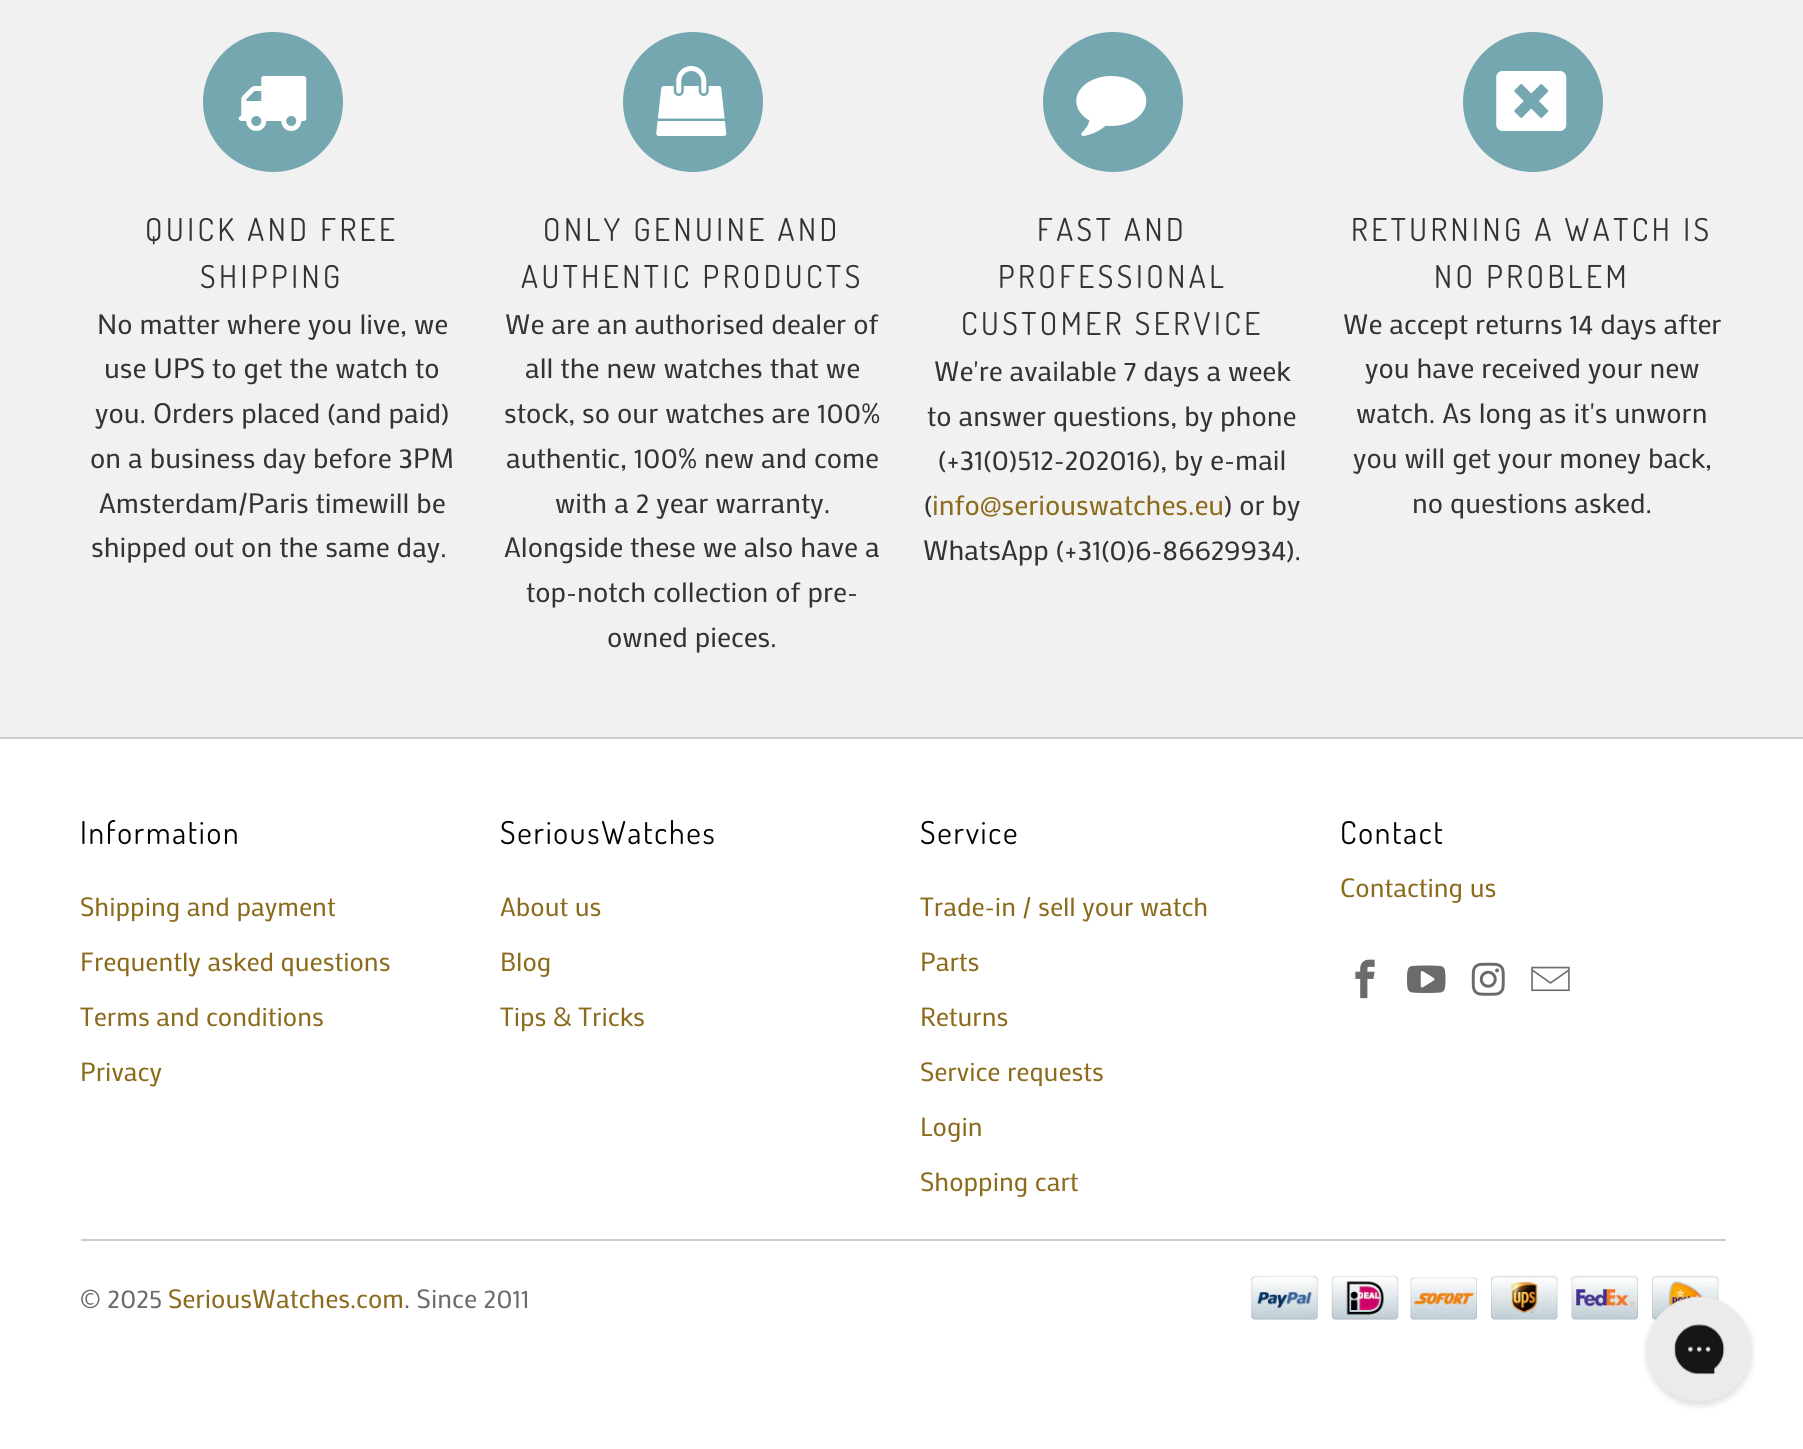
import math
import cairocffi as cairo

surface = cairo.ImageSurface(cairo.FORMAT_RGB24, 1803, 1449)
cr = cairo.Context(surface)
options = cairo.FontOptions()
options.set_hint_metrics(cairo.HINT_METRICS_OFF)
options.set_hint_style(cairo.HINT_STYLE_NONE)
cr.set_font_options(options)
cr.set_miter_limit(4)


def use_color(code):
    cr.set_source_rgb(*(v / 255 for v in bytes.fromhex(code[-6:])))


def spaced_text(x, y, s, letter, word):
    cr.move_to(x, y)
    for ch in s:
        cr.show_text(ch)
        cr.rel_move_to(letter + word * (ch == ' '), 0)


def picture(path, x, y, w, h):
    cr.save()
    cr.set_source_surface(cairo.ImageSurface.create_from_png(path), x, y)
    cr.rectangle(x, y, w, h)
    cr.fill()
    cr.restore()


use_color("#f1f1f1")
cr.paint()
use_color("#75a7b0")
cr.arc(273, 102, 70, 0, 2 * math.pi)
cr.fill()
picture("img1.png", 238, 76, 69, 55)
cr.select_font_face("Dosis")
cr.set_font_size(31.5)
use_color("#333333")
spaced_text(145, 241, "QUICK AND FREE", 3.5, 0)
spaced_text(200, 288, "SHIPPING", 3.5, 0)
cr.select_font_face("Mako")
cr.set_font_size(28)
cr.move_to(97, 334)
cr.show_text("No matter where you live, we")
cr.move_to(104, 378)
cr.show_text("use UPS to get the watch to")
cr.move_to(95, 423)
cr.show_text("you. Orders placed (and paid)")
cr.move_to(90, 468)
cr.show_text("on a business day before 3PM")
cr.move_to(99, 513)
cr.show_text("Amsterdam/Paris timewill be")
cr.move_to(91, 557)
cr.show_text("shipped out on the same day.")
use_color("#75a7b0")
cr.new_path()
cr.arc(693, 102, 70, 0, 2 * math.pi)
cr.fill()
picture("img2.png", 656, 66, 71, 70)
cr.select_font_face("Dosis")
cr.set_font_size(31.5)
use_color("#333333")
spaced_text(543, 241, "ONLY GENUINE AND", 3.5, 0)
spaced_text(521, 288, "AUTHENTIC PRODUCTS", 3.5, 0)
cr.select_font_face("Mako")
cr.set_font_size(28)
cr.move_to(505, 334)
cr.show_text("We are an authorised dealer of")
cr.move_to(525, 378)
cr.show_text("all the new watches that we")
cr.move_to(504, 423)
cr.show_text("stock, so our watches are 100%")
cr.move_to(506, 468)
cr.show_text("authentic, 100% new and come")
cr.move_to(555, 513)
cr.show_text("with a 2 year warranty.")
cr.move_to(504, 557)
cr.show_text("Alongside these we also have a")
cr.move_to(526, 602)
cr.show_text("top-notch collection of pre-")
cr.move_to(607, 647)
cr.show_text("owned pieces.")
use_color("#75a7b0")
cr.new_path()
cr.arc(1113, 102, 70, 0, 2 * math.pi)
cr.fill()
picture("img3.png", 1076, 76, 71, 60)
cr.select_font_face("Dosis")
cr.set_font_size(31.5)
use_color("#333333")
spaced_text(1037, 241, "FAST AND", 3.5, 0)
spaced_text(998, 288, "PROFESSIONAL", 3.5, 0)
spaced_text(961, 335, "CUSTOMER SERVICE", 3.5, 0)
cr.select_font_face("Mako")
cr.set_font_size(28)
cr.move_to(934, 381)
cr.show_text("We're available 7 days a week")
cr.move_to(927, 426)
cr.show_text("to answer questions, by phone")
cr.move_to(938, 470)
cr.show_text("(+31(0)512-202016), by e-mail")
cr.move_to(924, 515)
cr.show_text("(")
use_color("#8b6a1b")
cr.move_to(932, 515)
cr.show_text("info@seriouswatches.eu")
use_color("#333333")
cr.move_to(1224, 515)
cr.show_text(") or by")
cr.move_to(923, 560)
cr.show_text("WhatsApp (+31(0)6-86629934).")
use_color("#75a7b0")
cr.new_path()
cr.arc(1533, 102, 70, 0, 2 * math.pi)
cr.fill()
picture("img4.png", 1496, 71, 71, 60)
cr.select_font_face("Dosis")
cr.set_font_size(31.5)
use_color("#333333")
spaced_text(1351, 241, "RETURNING A WATCH IS", 3.5, 0)
spaced_text(1434, 288, "NO PROBLEM", 3.5, 0)
cr.select_font_face("Mako")
cr.set_font_size(28)
cr.move_to(1343, 334)
cr.show_text("We accept returns 14 days after")
cr.move_to(1365, 378)
cr.show_text("you have received your new")
cr.move_to(1356, 423)
cr.show_text("watch. As long as it's unworn")
cr.move_to(1353, 468)
cr.show_text("you will get your money back,")
cr.move_to(1412, 513)
cr.show_text("no questions asked.")
use_color("#ffffff")
cr.rectangle(0, 739, 1803, 710)
cr.fill()
use_color("#cccccc")
cr.rectangle(0, 737, 1803, 2)
cr.fill()
cr.select_font_face("Dosis")
cr.set_font_size(31.5)
use_color("#040404")
spaced_text(80, 844, "Information", 1.75, 0)
cr.select_font_face("Mako")
cr.set_font_size(26.25)
use_color("#8b6a1b")
cr.move_to(80, 916)
cr.show_text("Shipping and payment")
cr.move_to(80, 971)
cr.show_text("Frequently asked questions")
cr.move_to(80, 1026)
cr.show_text("Terms and conditions")
cr.move_to(80, 1081)
cr.show_text("Privacy")
cr.select_font_face("Dosis")
cr.set_font_size(31.5)
use_color("#040404")
spaced_text(500, 844, "SeriousWatches", 1.75, 0)
cr.select_font_face("Mako")
cr.set_font_size(26.25)
use_color("#8b6a1b")
cr.move_to(500, 916)
cr.show_text("About us")
cr.move_to(500, 971)
cr.show_text("Blog")
cr.move_to(500, 1026)
cr.show_text("Tips & Tricks")
cr.select_font_face("Dosis")
cr.set_font_size(31.5)
use_color("#040404")
spaced_text(920, 844, "Service", 1.75, 0)
cr.select_font_face("Mako")
cr.set_font_size(26.25)
use_color("#8b6a1b")
cr.move_to(920, 916)
cr.show_text("Trade-in / sell your watch")
cr.move_to(920, 971)
cr.show_text("Parts")
cr.move_to(920, 1026)
cr.show_text("Returns")
cr.move_to(920, 1081)
cr.show_text("Service requests")
cr.move_to(920, 1136)
cr.show_text("Login")
cr.move_to(920, 1191)
cr.show_text("Shopping cart")
cr.select_font_face("Dosis")
cr.set_font_size(31.5)
use_color("#040404")
spaced_text(1340, 844, "Contact", 1.75, 0)
cr.select_font_face("Mako")
cr.set_font_size(26.25)
use_color("#8b6a1b")
cr.move_to(1340, 897)
cr.show_text("Contacting us")
picture("img5.png", 1355, 959, 20, 40)
picture("img6.png", 1407, 965, 39, 28)
picture("img7.png", 1471, 962, 34, 34)
picture("img8.png", 1531, 966, 39, 26)
use_color("#cccccc")
cr.rectangle(81, 1239, 1645, 2)
cr.fill()
use_color("#6b6b6b")
cr.move_to(80, 1308)
cr.show_text("© 2025")
use_color("#8b6a1b")
cr.move_to(168, 1308)
cr.show_text("SeriousWatches.com")
use_color("#6b6b6b")
cr.move_to(404, 1308)
cr.show_text(". Since 2011")
picture("img9.png", 1251, 1275, 67, 45)
picture("img10.png", 1331, 1275, 68, 45)
picture("img11.png", 1410, 1277, 67, 43)
picture("img12.png", 1491, 1275, 67, 45)
picture("img13.png", 1571, 1275, 67, 45)
picture("img14.png", 1652, 1275, 67, 45)
picture("img15.png", 1643, 1296, 112, 113)
surface.write_to_png("result.png")
